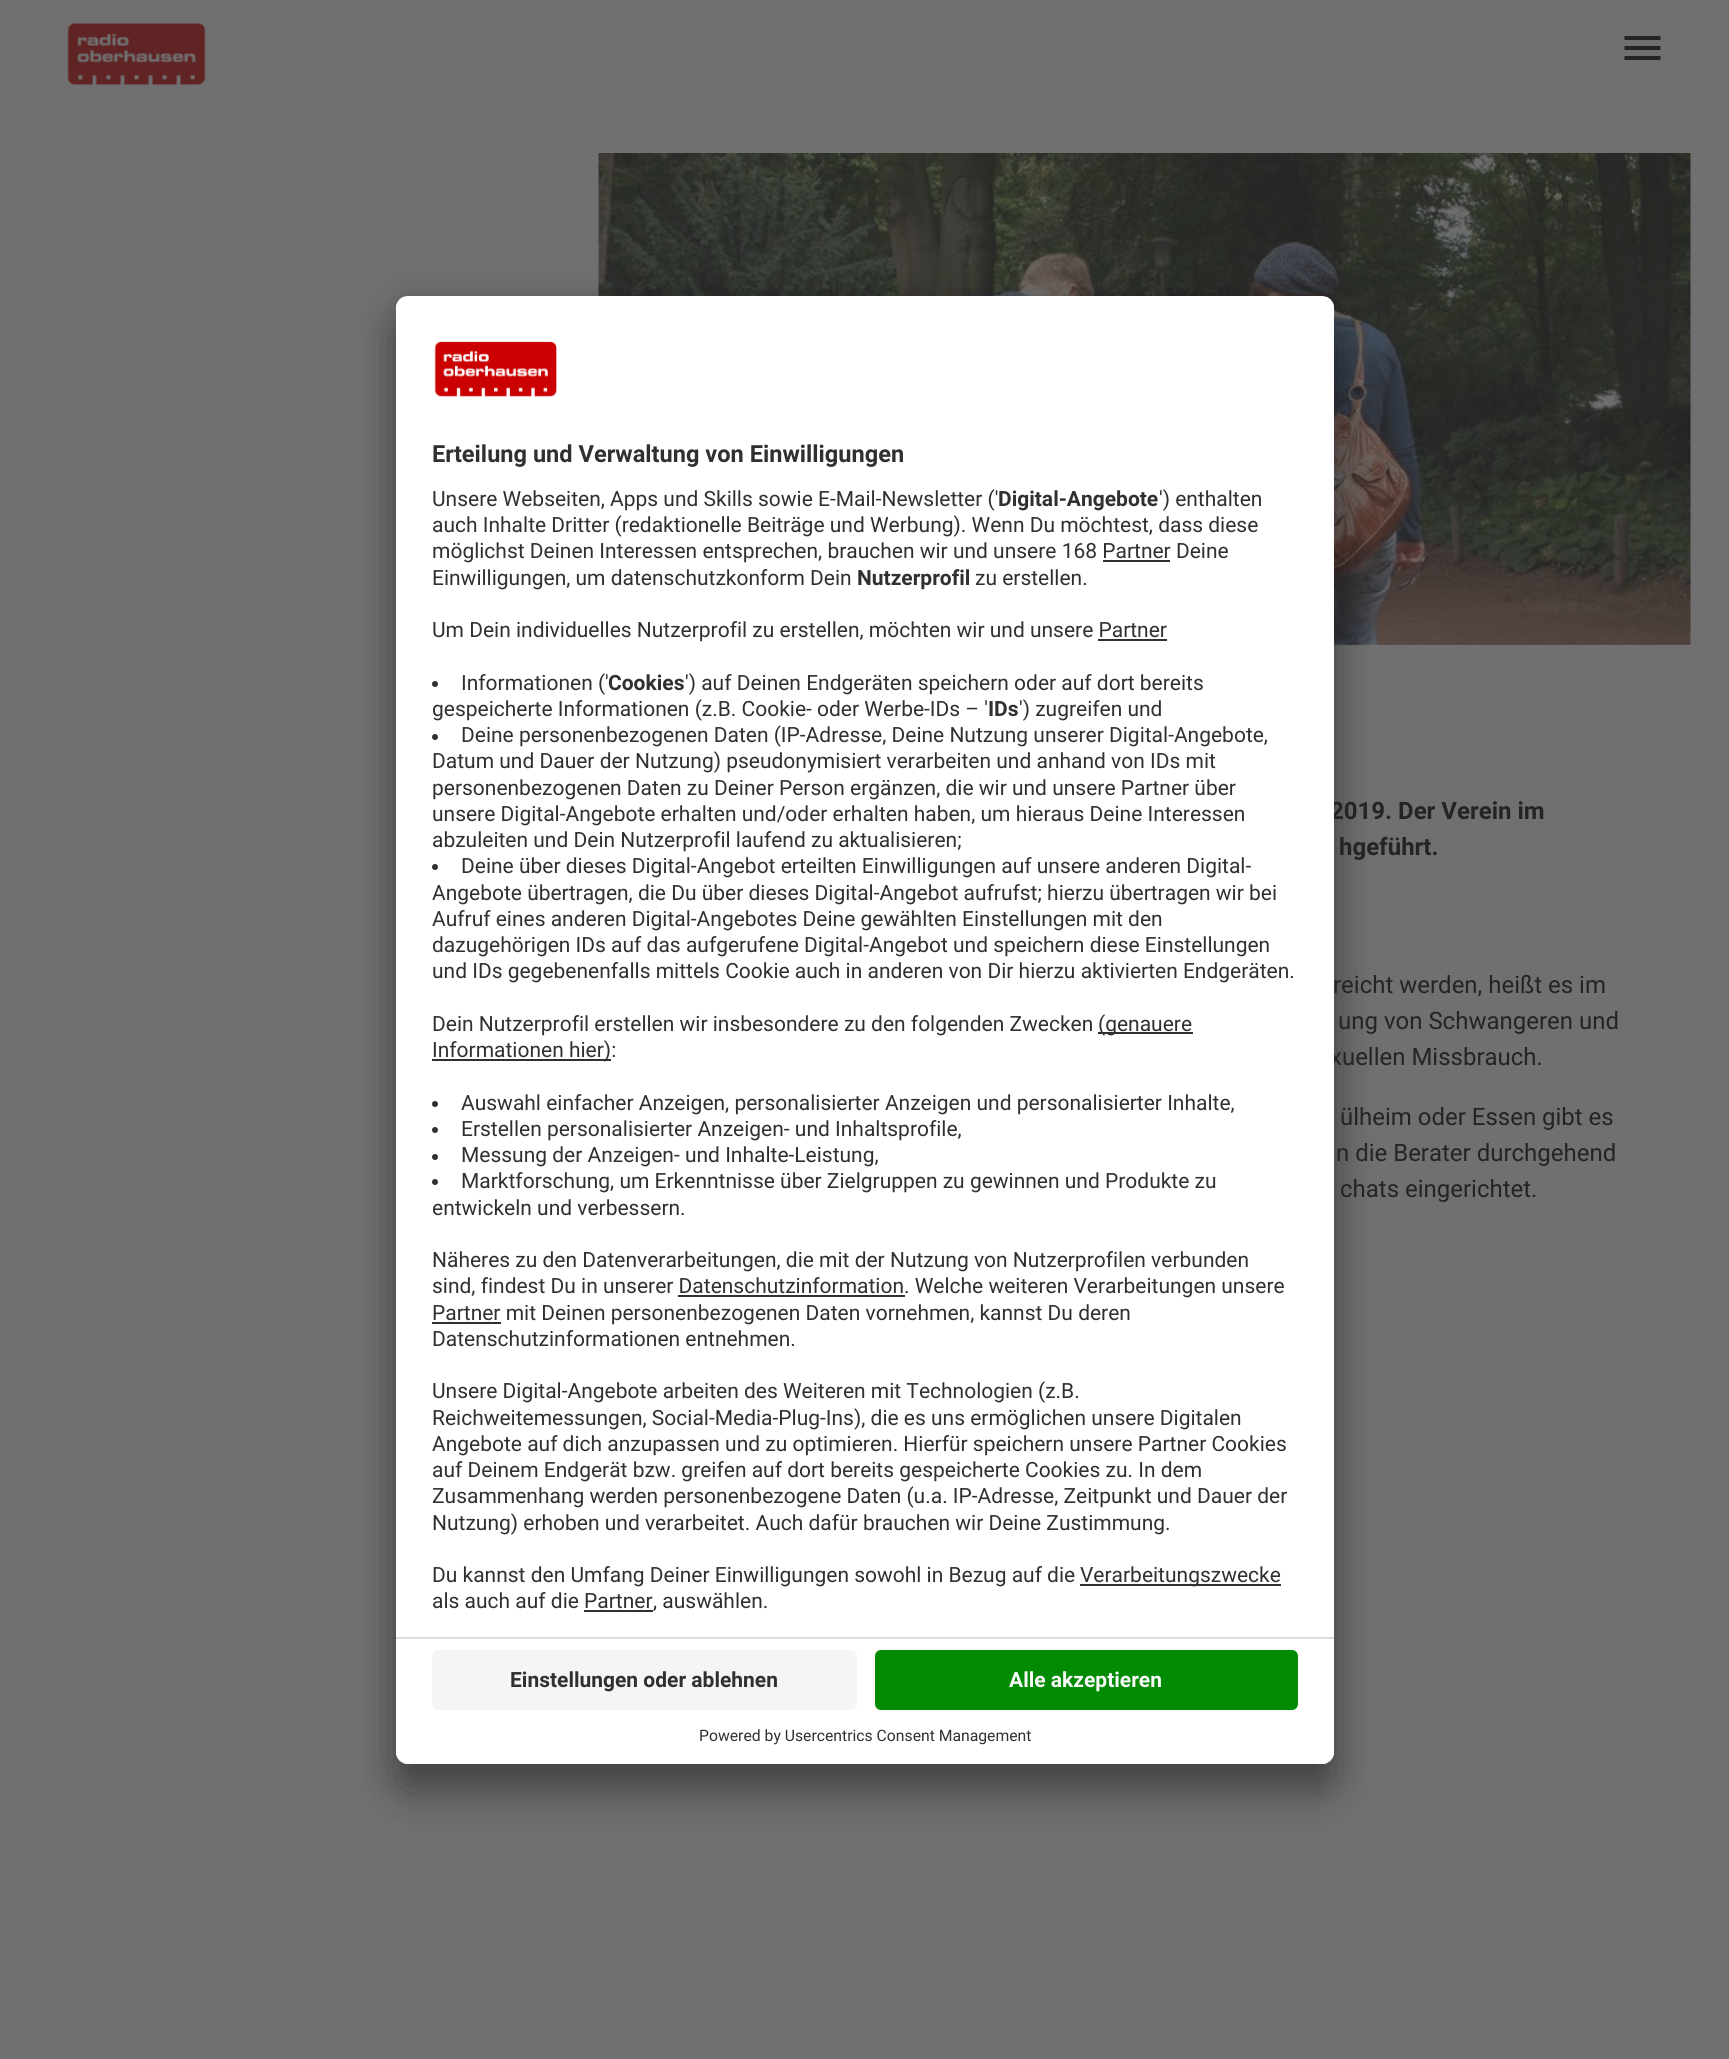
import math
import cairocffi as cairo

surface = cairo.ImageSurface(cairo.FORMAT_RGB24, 1729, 2059)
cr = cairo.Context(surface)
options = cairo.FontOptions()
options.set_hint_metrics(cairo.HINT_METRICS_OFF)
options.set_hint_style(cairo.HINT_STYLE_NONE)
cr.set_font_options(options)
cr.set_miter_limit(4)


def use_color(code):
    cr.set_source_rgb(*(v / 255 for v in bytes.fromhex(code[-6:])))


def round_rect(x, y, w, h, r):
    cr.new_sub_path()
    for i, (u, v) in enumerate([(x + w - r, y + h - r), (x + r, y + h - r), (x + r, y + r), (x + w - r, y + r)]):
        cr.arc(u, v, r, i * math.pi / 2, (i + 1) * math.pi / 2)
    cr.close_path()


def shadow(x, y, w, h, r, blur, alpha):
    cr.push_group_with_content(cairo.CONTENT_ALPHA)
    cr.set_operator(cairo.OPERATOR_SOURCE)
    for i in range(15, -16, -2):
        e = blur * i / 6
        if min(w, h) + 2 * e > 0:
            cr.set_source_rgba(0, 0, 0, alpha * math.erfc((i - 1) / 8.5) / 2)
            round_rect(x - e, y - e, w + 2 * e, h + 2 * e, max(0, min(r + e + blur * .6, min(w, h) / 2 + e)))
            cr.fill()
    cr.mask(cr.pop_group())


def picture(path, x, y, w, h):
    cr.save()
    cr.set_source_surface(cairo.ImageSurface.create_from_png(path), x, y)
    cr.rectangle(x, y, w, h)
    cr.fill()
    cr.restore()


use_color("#707070")
cr.paint()
picture("img3.png", 598, 153, 1093, 492)
use_color("#000000")
shadow(396, 326, 938, 1468, 12, 21, 0.3)
shadow(396, 303, 938, 1469, 12, 19.5, 0.22)
cr.select_font_face("Roboto", cairo.FONT_SLANT_NORMAL, cairo.FONT_WEIGHT_BOLD)
cr.set_font_size(24)
use_color("#242424")
cr.move_to(1330, 819)
cr.show_text("2019. Der Verein im")
cr.select_font_face("Roboto")
cr.move_to(1330, 1065)
cr.show_text("xuellen Missbrauch.")
use_color("#ffffff")
round_rect(396, 296, 938, 1468, 12)
cr.fill()
cr.save()
round_rect(396, 296, 938, 1468, 12)
cr.clip()
cr.new_path()
cr.move_to(408, 296)
cr.line_to(1322, 296)
cr.curve_to(1328.5, 296, 1334, 301.5, 1334, 308)
cr.line_to(1334, 1637)
cr.line_to(396, 1637)
cr.line_to(396, 308)
cr.curve_to(396, 301.5, 401.5, 296, 408, 296)
cr.close_path()
cr.clip()
cr.rectangle(396, 297, 938, 1340)
cr.fill()
cr.restore()
picture("img1.png", 434, 341, 123, 56)
cr.select_font_face("Roboto", cairo.FONT_SLANT_NORMAL, cairo.FONT_WEIGHT_BOLD)
cr.set_font_size(23.6)
use_color("#303030")
cr.move_to(432, 462)
cr.show_text("Erteilung und Verwaltung von Einwilligungen")
cr.select_font_face("Roboto")
cr.set_font_size(21)
cr.move_to(432, 506)
cr.show_text("Unsere Webseiten, Apps und Skills sowie E-Mail-Newsletter ('")
cr.select_font_face("Roboto", cairo.FONT_SLANT_NORMAL, cairo.FONT_WEIGHT_BOLD)
cr.move_to(998, 506)
cr.show_text("Digital-Angebote")
cr.select_font_face("Roboto")
cr.move_to(1159, 506)
cr.show_text("') enthalten")
cr.move_to(432, 532)
cr.show_text("auch Inhalte Dritter (redaktionelle Beiträge und Werbung). Wenn Du möchtest, dass diese")
cr.move_to(432, 558)
cr.show_text("möglichst Deinen Interessen entsprechen, brauchen wir und unsere 168 Partner Deine")
cr.rectangle(1103, 560, 67, 2)
cr.fill()
cr.move_to(432, 585)
cr.show_text("Einwilligungen, um datenschutzkonform Dein")
cr.select_font_face("Roboto", cairo.FONT_SLANT_NORMAL, cairo.FONT_WEIGHT_BOLD)
cr.move_to(857, 585)
cr.show_text("Nutzerprofil")
cr.select_font_face("Roboto")
cr.move_to(975, 585)
cr.show_text("zu erstellen.")
cr.move_to(432, 637)
cr.show_text("Um Dein individuelles Nutzerprofil zu erstellen, möchten wir und unsere Partner")
cr.rectangle(1098, 639, 69, 2)
cr.fill()
cr.arc(435, 684, 3, 0, 2 * math.pi)
cr.fill()
cr.move_to(461, 690)
cr.show_text("Informationen ('")
cr.select_font_face("Roboto", cairo.FONT_SLANT_NORMAL, cairo.FONT_WEIGHT_BOLD)
cr.move_to(608, 690)
cr.show_text("Cookies")
cr.select_font_face("Roboto")
cr.move_to(685, 690)
cr.show_text("') auf Deinen Endgeräten speichern oder auf dort bereits")
cr.move_to(432, 716)
cr.show_text("gespeicherte Informationen (z.B. Cookie- oder Werbe-IDs – '")
cr.select_font_face("Roboto", cairo.FONT_SLANT_NORMAL, cairo.FONT_WEIGHT_BOLD)
cr.move_to(988, 716)
cr.show_text("IDs")
cr.select_font_face("Roboto")
cr.move_to(1019, 716)
cr.show_text("') zugreifen und")
cr.new_path()
cr.arc(435, 737, 3, 0, 2 * math.pi)
cr.fill()
cr.move_to(461, 742)
cr.show_text("Deine personenbezogenen Daten (IP-Adresse, Deine Nutzung unserer Digital-Angebote,")
cr.move_to(432, 768)
cr.show_text("Datum und Dauer der Nutzung) pseudonymisiert verarbeiten und anhand von IDs mit")
cr.move_to(432, 795)
cr.show_text("personenbezogenen Daten zu Deiner Person ergänzen, die wir und unsere Partner über")
cr.move_to(432, 821)
cr.show_text("unsere Digital-Angebote erhalten und/oder erhalten haben, um hieraus Deine Interessen")
cr.move_to(432, 847)
cr.show_text("abzuleiten und Dein Nutzerprofil laufend zu aktualisieren;")
cr.new_path()
cr.arc(435, 867, 3, 0, 2 * math.pi)
cr.fill()
cr.move_to(461, 873)
cr.show_text("Deine über dieses Digital-Angebot erteilten Einwilligungen auf unsere anderen Digital-")
cr.move_to(432, 900)
cr.show_text("Angebote übertragen, die Du über dieses Digital-Angebot aufrufst; hierzu übertragen wir bei")
cr.move_to(432, 926)
cr.show_text("Aufruf eines anderen Digital-Angebotes Deine gewählten Einstellungen mit den")
cr.move_to(432, 952)
cr.show_text("dazugehörigen IDs auf das aufgerufene Digital-Angebot und speichern diese Einstellungen")
cr.move_to(432, 978)
cr.show_text("und IDs gegebenenfalls mittels Cookie auch in anderen von Dir hierzu aktivierten Endgeräten.")
cr.move_to(432, 1031)
cr.show_text("Dein Nutzerprofil erstellen wir insbesondere zu den folgenden Zwecken")
cr.rectangle(1098, 1032, 95, 2)
cr.fill()
cr.move_to(1098, 1031)
cr.show_text("(genauere")
cr.rectangle(432, 1059, 179, 2)
cr.fill()
cr.move_to(432, 1057)
cr.show_text("Informationen hier):")
cr.new_path()
cr.arc(435, 1104, 3, 0, 2 * math.pi)
cr.fill()
cr.move_to(461, 1110)
cr.show_text("Auswahl einfacher Anzeigen, personalisierter Anzeigen und personalisierter Inhalte,")
cr.new_path()
cr.arc(435, 1130, 3, 0, 2 * math.pi)
cr.fill()
cr.move_to(461, 1136)
cr.show_text("Erstellen personalisierter Anzeigen- und Inhaltsprofile,")
cr.new_path()
cr.arc(435, 1157, 3, 0, 2 * math.pi)
cr.fill()
cr.move_to(461, 1162)
cr.show_text("Messung der Anzeigen- und Inhalte-Leistung,")
cr.new_path()
cr.arc(435, 1182, 3, 0, 2 * math.pi)
cr.fill()
cr.move_to(461, 1188)
cr.show_text("Marktforschung, um Erkenntnisse über Zielgruppen zu gewinnen und Produkte zu")
cr.move_to(432, 1215)
cr.show_text("entwickeln und verbessern.")
cr.move_to(432, 1267)
cr.show_text("Näheres zu den Datenverarbeitungen, die mit der Nutzung von Nutzerprofilen verbunden")
cr.move_to(432, 1293)
cr.show_text("sind, findest Du in unserer Datenschutzinformation. Welche weiteren Verarbeitungen unsere")
cr.rectangle(678, 1295, 227, 2)
cr.fill()
cr.rectangle(432, 1322, 69, 2)
cr.fill()
cr.move_to(432, 1320)
cr.show_text("Partner mit Deinen personenbezogenen Daten vornehmen, kannst Du deren")
cr.move_to(432, 1346)
cr.show_text("Datenschutzinformationen entnehmen.")
cr.move_to(432, 1398)
cr.show_text("Unsere Digital-Angebote arbeiten des Weiteren mit Technologien (z.B.")
cr.move_to(432, 1425)
cr.show_text("Reichweitemessungen, Social-Media-Plug-Ins), die es uns ermöglichen unsere Digitalen")
cr.move_to(432, 1451)
cr.show_text("Angebote auf dich anzupassen und zu optimieren. Hierfür speichern unsere Partner Cookies")
cr.move_to(432, 1477)
cr.show_text("auf Deinem Endgerät bzw. greifen auf dort bereits gespeicherte Cookies zu. In dem")
cr.move_to(432, 1503)
cr.show_text("Zusammenhang werden personenbezogene Daten (u.a. IP-Adresse, Zeitpunkt und Dauer der")
cr.move_to(432, 1530)
cr.show_text("Nutzung) erhoben und verarbeitet. Auch dafür brauchen wir Deine Zustimmung.")
cr.move_to(432, 1582)
cr.show_text("Du kannst den Umfang Deiner Einwilligungen sowohl in Bezug auf die")
cr.rectangle(1080, 1584, 201, 2)
cr.fill()
cr.move_to(1080, 1582)
cr.show_text("Verarbeitungszwecke")
cr.move_to(432, 1608)
cr.show_text("als auch auf die Partner")
cr.rectangle(584, 1610, 69, 2)
cr.fill()
cr.move_to(653, 1608)
cr.show_text(", auswählen.")
use_color("#ffffff")
cr.new_path()
cr.move_to(396, 1637)
cr.line_to(1334, 1637)
cr.line_to(1334, 1752)
cr.curve_to(1334, 1758.5, 1328.5, 1764, 1322, 1764)
cr.line_to(408, 1764)
cr.curve_to(401.5, 1764, 396, 1758.5, 396, 1752)
cr.close_path()
cr.fill()
use_color("#dddddd")
cr.rectangle(396, 1637, 938, 2)
cr.fill()
use_color("#f5f5f5")
round_rect(432, 1650, 425, 60, 6)
cr.fill()
cr.select_font_face("Roboto", cairo.FONT_SLANT_NORMAL, cairo.FONT_WEIGHT_BOLD)
use_color("#303030")
cr.move_to(510, 1687)
cr.show_text("Einstellungen oder ablehnen")
use_color("#008b02")
round_rect(875, 1650, 423, 60, 6)
cr.fill()
use_color("#fafafa")
cr.move_to(1009, 1687)
cr.show_text("Alle akzeptieren")
cr.select_font_face("Roboto")
cr.set_font_size(15.75)
use_color("#303030")
cr.move_to(699, 1741)
cr.show_text("Powered by Usercentrics Consent Management")
picture("img2.png", 67, 22, 139, 63)
use_color("#242424")
cr.new_path()
cr.move_to(1624.5, 60)
cr.line_to(1624.5, 56)
cr.line_to(1660.5, 56)
cr.line_to(1660.5, 60)
cr.close_path()
cr.move_to(1624.5, 50)
cr.line_to(1624.5, 46)
cr.line_to(1660.5, 46)
cr.line_to(1660.5, 50)
cr.close_path()
cr.move_to(1624.5, 40)
cr.line_to(1624.5, 36)
cr.line_to(1660.5, 36)
cr.line_to(1660.5, 40)
cr.close_path()
cr.fill()
cr.select_font_face("Roboto", cairo.FONT_SLANT_NORMAL, cairo.FONT_WEIGHT_BOLD)
cr.set_font_size(24)
cr.move_to(1339, 855)
cr.show_text("hgeführt.")
cr.select_font_face("Roboto")
cr.move_to(1333, 993)
cr.show_text("reicht werden, heißt es im")
cr.move_to(1338, 1029)
cr.show_text("ung von Schwangeren und")
cr.move_to(1340, 1125)
cr.show_text("ülheim oder Essen gibt es")
cr.move_to(1336, 1161)
cr.show_text("n die Berater durchgehend")
cr.move_to(1340, 1197)
cr.show_text("chats eingerichtet.")
surface.write_to_png("result.png")
